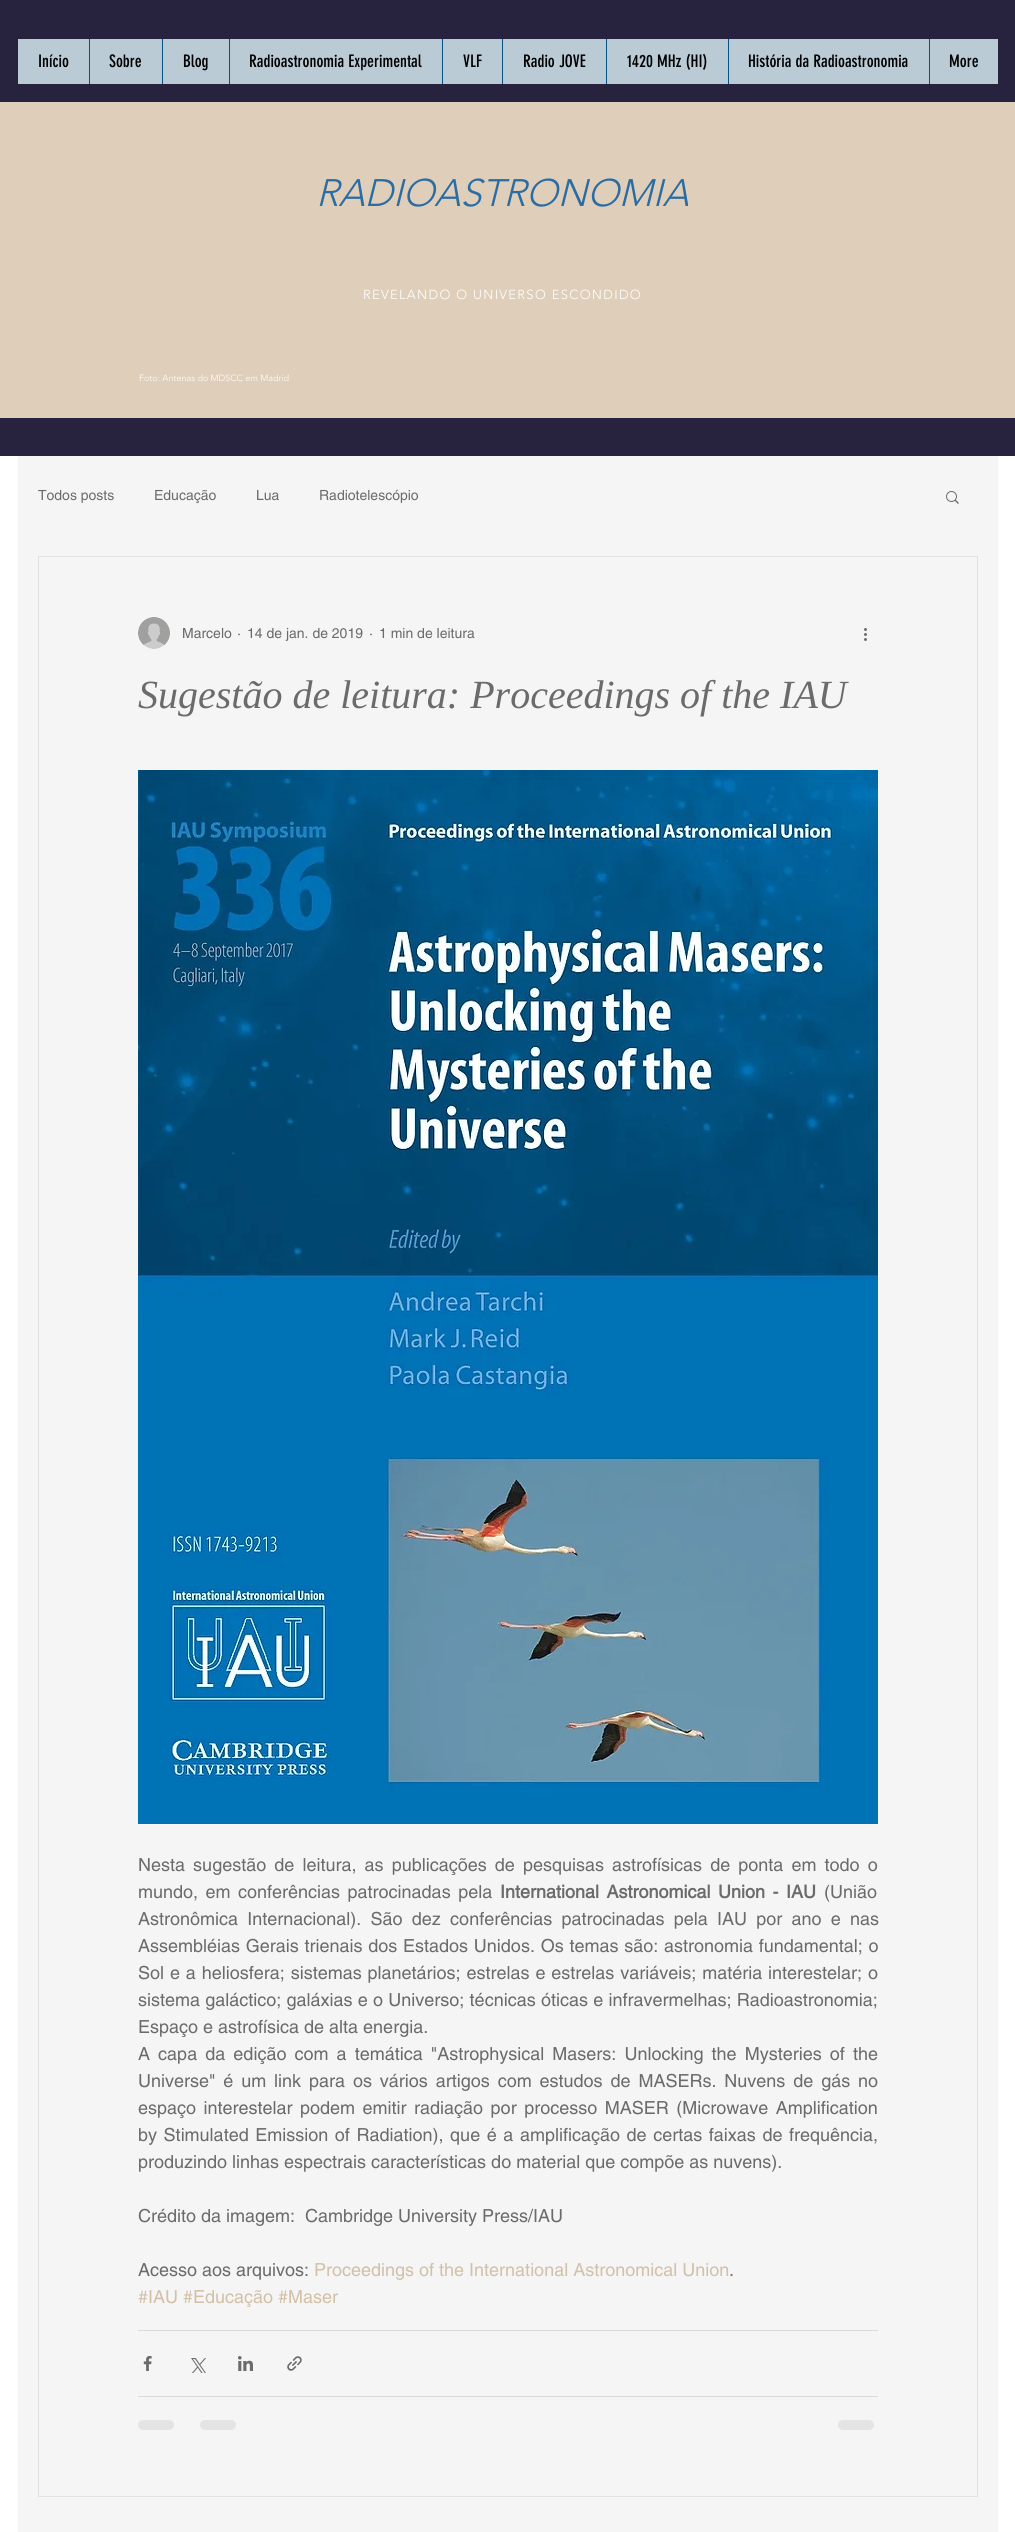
import math
import cairocffi as cairo

surface = cairo.ImageSurface(cairo.FORMAT_RGB24, 1015, 2532)
cr = cairo.Context(surface)
options = cairo.FontOptions()
options.set_hint_metrics(cairo.HINT_METRICS_OFF)
options.set_hint_style(cairo.HINT_STYLE_NONE)
cr.set_font_options(options)
cr.set_miter_limit(4)


def use_color(code):
    cr.set_source_rgb(*(v / 255 for v in bytes.fromhex(code[-6:])))


def spaced_text(x, y, s, letter, word):
    cr.move_to(x, y)
    for ch in s:
        cr.show_text(ch)
        cr.rel_move_to(letter + word * (ch == ' '), 0)


def round_rect(x, y, w, h, r):
    cr.new_sub_path()
    for i, (u, v) in enumerate([(x + w - r, y + h - r), (x + r, y + h - r), (x + r, y + r), (x + w - r, y + r)]):
        cr.arc(u, v, r, i * math.pi / 2, (i + 1) * math.pi / 2)
    cr.close_path()


def picture(path, x, y, w, h):
    cr.save()
    cr.set_source_surface(cairo.ImageSurface.create_from_png(path), x, y)
    cr.rectangle(x, y, w, h)
    cr.fill()
    cr.restore()


use_color("#ffffff")
cr.paint()
use_color("#27223e")
cr.rectangle(0, 0, 1015, 456)
cr.fill()
use_color("#bacbd6")
cr.rectangle(18, 39, 980, 45)
cr.fill()
cr.select_font_face("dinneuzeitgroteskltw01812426")
cr.set_font_size(17)
use_color("#000000")
cr.move_to(38, 67)
cr.show_text("Início")
use_color("#045184")
cr.rectangle(89, 39, 1, 45)
cr.fill()
use_color("#000000")
cr.move_to(109, 67)
cr.show_text("Sobre")
use_color("#045184")
cr.rectangle(162, 39, 1, 45)
cr.fill()
use_color("#000000")
cr.move_to(183, 67)
cr.show_text("Blog")
use_color("#045184")
cr.rectangle(229, 39, 1, 45)
cr.fill()
use_color("#000000")
cr.move_to(249, 67)
cr.show_text("Radioastronomia Experimental")
use_color("#045184")
cr.rectangle(442, 39, 1, 45)
cr.fill()
use_color("#000000")
cr.move_to(463, 67)
cr.show_text("VLF")
use_color("#045184")
cr.rectangle(502, 39, 1, 45)
cr.fill()
use_color("#000000")
cr.move_to(523, 67)
cr.show_text("Radio JOVE")
use_color("#045184")
cr.rectangle(606, 39, 1, 45)
cr.fill()
use_color("#000000")
cr.move_to(627, 67)
cr.show_text("1420 MHz (HI)")
use_color("#045184")
cr.rectangle(728, 39, 1, 45)
cr.fill()
use_color("#000000")
cr.move_to(748, 67)
cr.show_text("História da Radioastronomia")
use_color("#045184")
cr.rectangle(929, 39, 1, 45)
cr.fill()
use_color("#000000")
cr.move_to(949, 67)
cr.show_text("More")
use_color("#dfcfba")
cr.rectangle(0, 102, 1015, 316)
cr.fill()
cr.select_font_face("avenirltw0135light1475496 Light", cairo.FONT_SLANT_ITALIC)
cr.set_font_size(38)
use_color("#2b6ca3")
cr.move_to(316, 206)
cr.show_text("RADIOASTRONOMIA")
cr.select_font_face("avenirltw0135light1475496 Light")
cr.set_font_size(13)
use_color("#ffffff")
spaced_text(363, 299, "REVELANDO O UNIVERSO ESCONDIDO", 1.3, 0)
cr.set_font_size(9)
cr.move_to(139, 381)
cr.show_text("Foto: Antenas do MDSCC em Madrid")
use_color("#f5f5f5")
cr.rectangle(18, 456, 980, 2076)
cr.fill()
cr.select_font_face("helvetica")
cr.set_font_size(14)
use_color("#6b6b6b")
cr.move_to(38, 500)
cr.show_text("Todos posts")
cr.move_to(154, 500)
cr.show_text("Educação")
cr.move_to(256, 500)
cr.show_text("Lua")
cr.move_to(319, 500)
cr.show_text("Radiotelescópio")
picture("img1.png", 946, 491, 13, 13)
cr.rectangle(38.5, 556.5, 939, 1940)
use_color("#e2e2e2")
cr.set_line_width(1)
cr.stroke()
picture("img2.png", 138, 617, 32, 32)
use_color("#6b6b6b")
cr.move_to(182, 638)
cr.show_text("Marcelo")
cr.move_to(237, 638)
cr.show_text("·")
cr.move_to(247, 638)
cr.show_text("14 de jan. de 2019")
cr.move_to(369, 638)
cr.show_text("·")
cr.move_to(379, 638)
cr.show_text("1 min de leitura")
picture("img3.png", 864, 628, 3, 13)
cr.select_font_face("Liberation Serif", cairo.FONT_SLANT_ITALIC)
cr.set_font_size(40)
cr.move_to(138, 708)
cr.show_text("Sugestão de leitura: Proceedings of the IAU")
picture("img4.png", 138, 770, 740, 1054)
cr.select_font_face("helvetica")
cr.set_font_size(18)
spaced_text(138, 1871, "Nesta sugestão de leitura, as publicações de pesquisas astrofísicas de ponta em todo o", 0, 3.1)
spaced_text(138, 1898, "mundo, em conferências patrocinadas pela", 0, 2.5)
cr.select_font_face("helvetica", cairo.FONT_SLANT_NORMAL, cairo.FONT_WEIGHT_BOLD)
spaced_text(500, 1898, "International Astronomical Union - IAU", 0, 2.5)
cr.select_font_face("helvetica")
cr.move_to(824, 1898)
cr.show_text("(União")
spaced_text(138, 1925, "Astronômica Internacional). São dez conferências patrocinadas pela IAU por ano e nas", 0, 4.25)
spaced_text(138, 1952, "Assembléias Gerais trienais dos Estados Unidos. Os temas são: astronomia fundamental; o", 0, 0.75)
spaced_text(138, 1979, "Sol e a heliosfera; sistemas planetários; estrelas e estrelas variáveis; matéria interestelar; o", 0, 0.9)
spaced_text(138, 2006, "sistema galáctico; galáxias e o Universo; técnicas óticas e infravermelhas; Radioastronomia;", 0, 0.25)
cr.move_to(138, 2033)
cr.show_text("Espaço e astrofísica de alta energia.")
spaced_text(138, 2060, "A capa da edição com a temática \"Astrophysical Masers: Unlocking the Mysteries of the", 0, 3.1)
spaced_text(138, 2087, "Universe\" é um link para os vários artigos com estudos de MASERs. Nuvens de gás no", 0, 2.9)
spaced_text(138, 2114, "espaço interestelar podem emitir radiação por processo MASER (Microwave Amplification", 0, 2.5)
spaced_text(138, 2141, "by Stimulated Emission of Radiation), que é a amplificação de certas faixas de frequência,", 0, 1.6)
cr.move_to(138, 2168)
cr.show_text("produzindo linhas espectrais características do material que compõe as nuvens).")
cr.move_to(138, 2222)
cr.show_text("Crédito da imagem:  Cambridge University Press/IAU")
cr.move_to(138, 2276)
cr.show_text("Acesso aos arquivos:")
use_color("#d2c0a8")
cr.move_to(314, 2276)
cr.show_text("Proceedings of the International Astronomical Union")
use_color("#6b6b6b")
cr.move_to(729, 2276)
cr.show_text(".")
use_color("#d2c0a8")
cr.move_to(138, 2303)
cr.show_text("#IAU #Educação #Maser")
use_color("#d9d9d9")
cr.rectangle(138, 2330, 740, 1)
cr.fill()
picture("img5.png", 143, 2356, 9, 15)
picture("img6.png", 191, 2358, 15, 15)
picture("img7.png", 238, 2356, 15, 15)
picture("img8.png", 287, 2356, 15, 15)
cr.rectangle(138, 2396, 740, 1)
cr.fill()
use_color("#e4e4e4")
round_rect(138, 2420, 36, 10, 5)
cr.fill()
round_rect(200, 2420, 36, 10, 5)
cr.fill()
round_rect(838, 2420, 36, 10, 5)
cr.fill()
surface.write_to_png("result.png")
